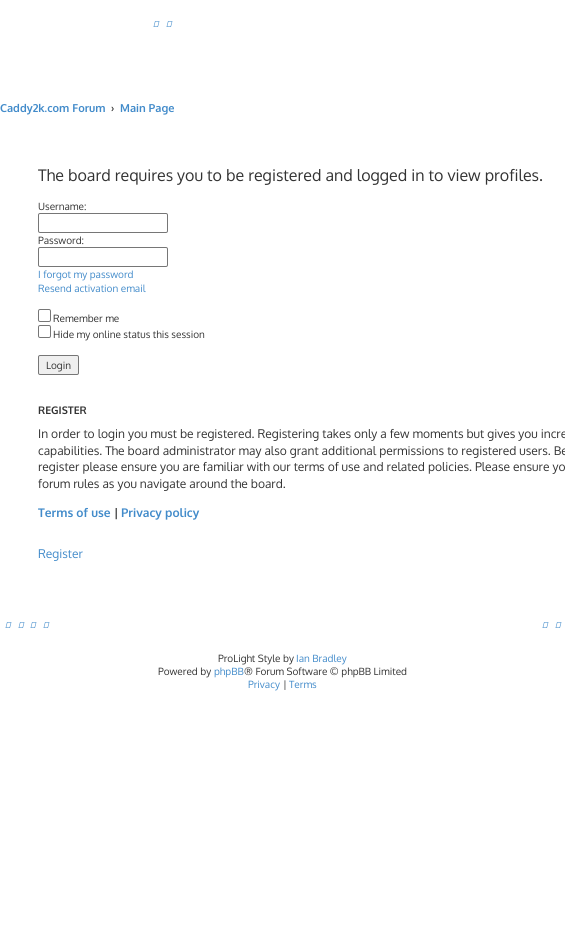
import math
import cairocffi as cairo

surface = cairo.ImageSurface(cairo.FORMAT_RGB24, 565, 934)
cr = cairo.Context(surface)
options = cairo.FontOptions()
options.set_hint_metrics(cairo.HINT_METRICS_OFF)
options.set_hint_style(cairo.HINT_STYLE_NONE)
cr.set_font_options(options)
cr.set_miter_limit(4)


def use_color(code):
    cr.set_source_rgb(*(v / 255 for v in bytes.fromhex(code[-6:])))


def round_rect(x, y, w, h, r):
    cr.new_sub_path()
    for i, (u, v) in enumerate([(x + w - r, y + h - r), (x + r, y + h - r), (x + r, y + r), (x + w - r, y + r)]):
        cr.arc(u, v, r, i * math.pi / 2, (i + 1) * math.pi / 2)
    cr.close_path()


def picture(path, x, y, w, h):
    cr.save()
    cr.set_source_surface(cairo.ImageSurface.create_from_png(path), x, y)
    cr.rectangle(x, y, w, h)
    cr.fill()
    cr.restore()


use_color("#ffffff")
cr.paint()
picture("img1.png", 153, 21, 7, 6)
picture("img1.png", 166, 21, 7, 6)
cr.select_font_face("Oxygen", cairo.FONT_SLANT_NORMAL, cairo.FONT_WEIGHT_BOLD)
cr.set_font_size(11)
use_color("#428bca")
cr.move_to(0, 112)
cr.show_text("Caddy2k.com Forum")
use_color("#333333")
cr.move_to(111, 112)
cr.show_text("›")
use_color("#428bca")
cr.move_to(120, 112)
cr.show_text("Main Page")
cr.select_font_face("Oxygen")
cr.set_font_size(16)
use_color("#333333")
cr.move_to(38, 181)
cr.show_text("The board requires you to be registered and logged in to view profiles.")
cr.set_font_size(10)
cr.move_to(38, 210)
cr.show_text("Username:")
round_rect(38.5, 213.5, 129, 19, 1.5)
use_color("#767676")
cr.set_line_width(1)
cr.stroke()
use_color("#333333")
cr.move_to(38, 244)
cr.show_text("Password:")
round_rect(38.5, 247.5, 129, 19, 1.5)
use_color("#767676")
cr.stroke()
use_color("#428bca")
cr.move_to(38, 278)
cr.show_text("I forgot my password")
cr.move_to(38, 292)
cr.show_text("Resend activation email")
round_rect(38.5, 309.5, 12, 12, 1.5)
use_color("#767676")
cr.stroke()
use_color("#333333")
cr.move_to(53, 322)
cr.show_text("Remember me")
round_rect(38.5, 325.5, 12, 12, 1.5)
use_color("#767676")
cr.stroke()
use_color("#333333")
cr.move_to(53, 338)
cr.show_text("Hide my online status this session")
use_color("#efefef")
round_rect(38.5, 355.5, 40, 19, 1.5)
cr.fill_preserve()
use_color("#767676")
cr.stroke()
use_color("#333333")
cr.move_to(46, 369)
cr.show_text("Login")
cr.select_font_face("Oxygen", cairo.FONT_SLANT_NORMAL, cairo.FONT_WEIGHT_BOLD)
cr.set_font_size(10.5)
cr.move_to(38, 414)
cr.show_text("REGISTER")
cr.select_font_face("Oxygen")
cr.set_font_size(12)
cr.move_to(38, 438)
cr.show_text("In order to login you must be registered. Registering takes only a few moments but gives you incre")
cr.move_to(38, 455)
cr.show_text("capabilities. The board administrator may also grant additional permissions to registered users. Be")
cr.move_to(38, 471)
cr.show_text("register please ensure you are familiar with our terms of use and related policies. Please ensure yo")
cr.move_to(38, 488)
cr.show_text("forum rules as you navigate around the board.")
cr.select_font_face("Oxygen", cairo.FONT_SLANT_NORMAL, cairo.FONT_WEIGHT_BOLD)
use_color("#428bca")
cr.move_to(38, 517)
cr.show_text("Terms of use")
use_color("#333333")
cr.move_to(114, 517)
cr.show_text("|")
use_color("#428bca")
cr.move_to(121, 517)
cr.show_text("Privacy policy")
cr.select_font_face("Oxygen")
cr.move_to(38, 558)
cr.show_text("Register")
picture("img1.png", 5, 622, 7, 6)
picture("img1.png", 18, 622, 7, 6)
picture("img1.png", 30, 622, 7, 6)
picture("img1.png", 43, 622, 7, 6)
picture("img1.png", 542, 622, 7, 6)
picture("img1.png", 555, 622, 7, 6)
cr.set_font_size(10)
use_color("#333333")
cr.move_to(218, 662)
cr.show_text("ProLight Style by")
use_color("#428bca")
cr.move_to(296, 662)
cr.show_text("Ian Bradley")
use_color("#333333")
cr.move_to(158, 675)
cr.show_text("Powered by")
use_color("#428bca")
cr.move_to(214, 675)
cr.show_text("phpBB")
use_color("#333333")
cr.move_to(244, 675)
cr.show_text("® Forum Software © phpBB Limited")
use_color("#428bca")
cr.move_to(248, 688)
cr.show_text("Privacy")
use_color("#333333")
cr.move_to(283, 688)
cr.show_text("|")
use_color("#428bca")
cr.move_to(289, 688)
cr.show_text("Terms")
surface.write_to_png("result.png")
